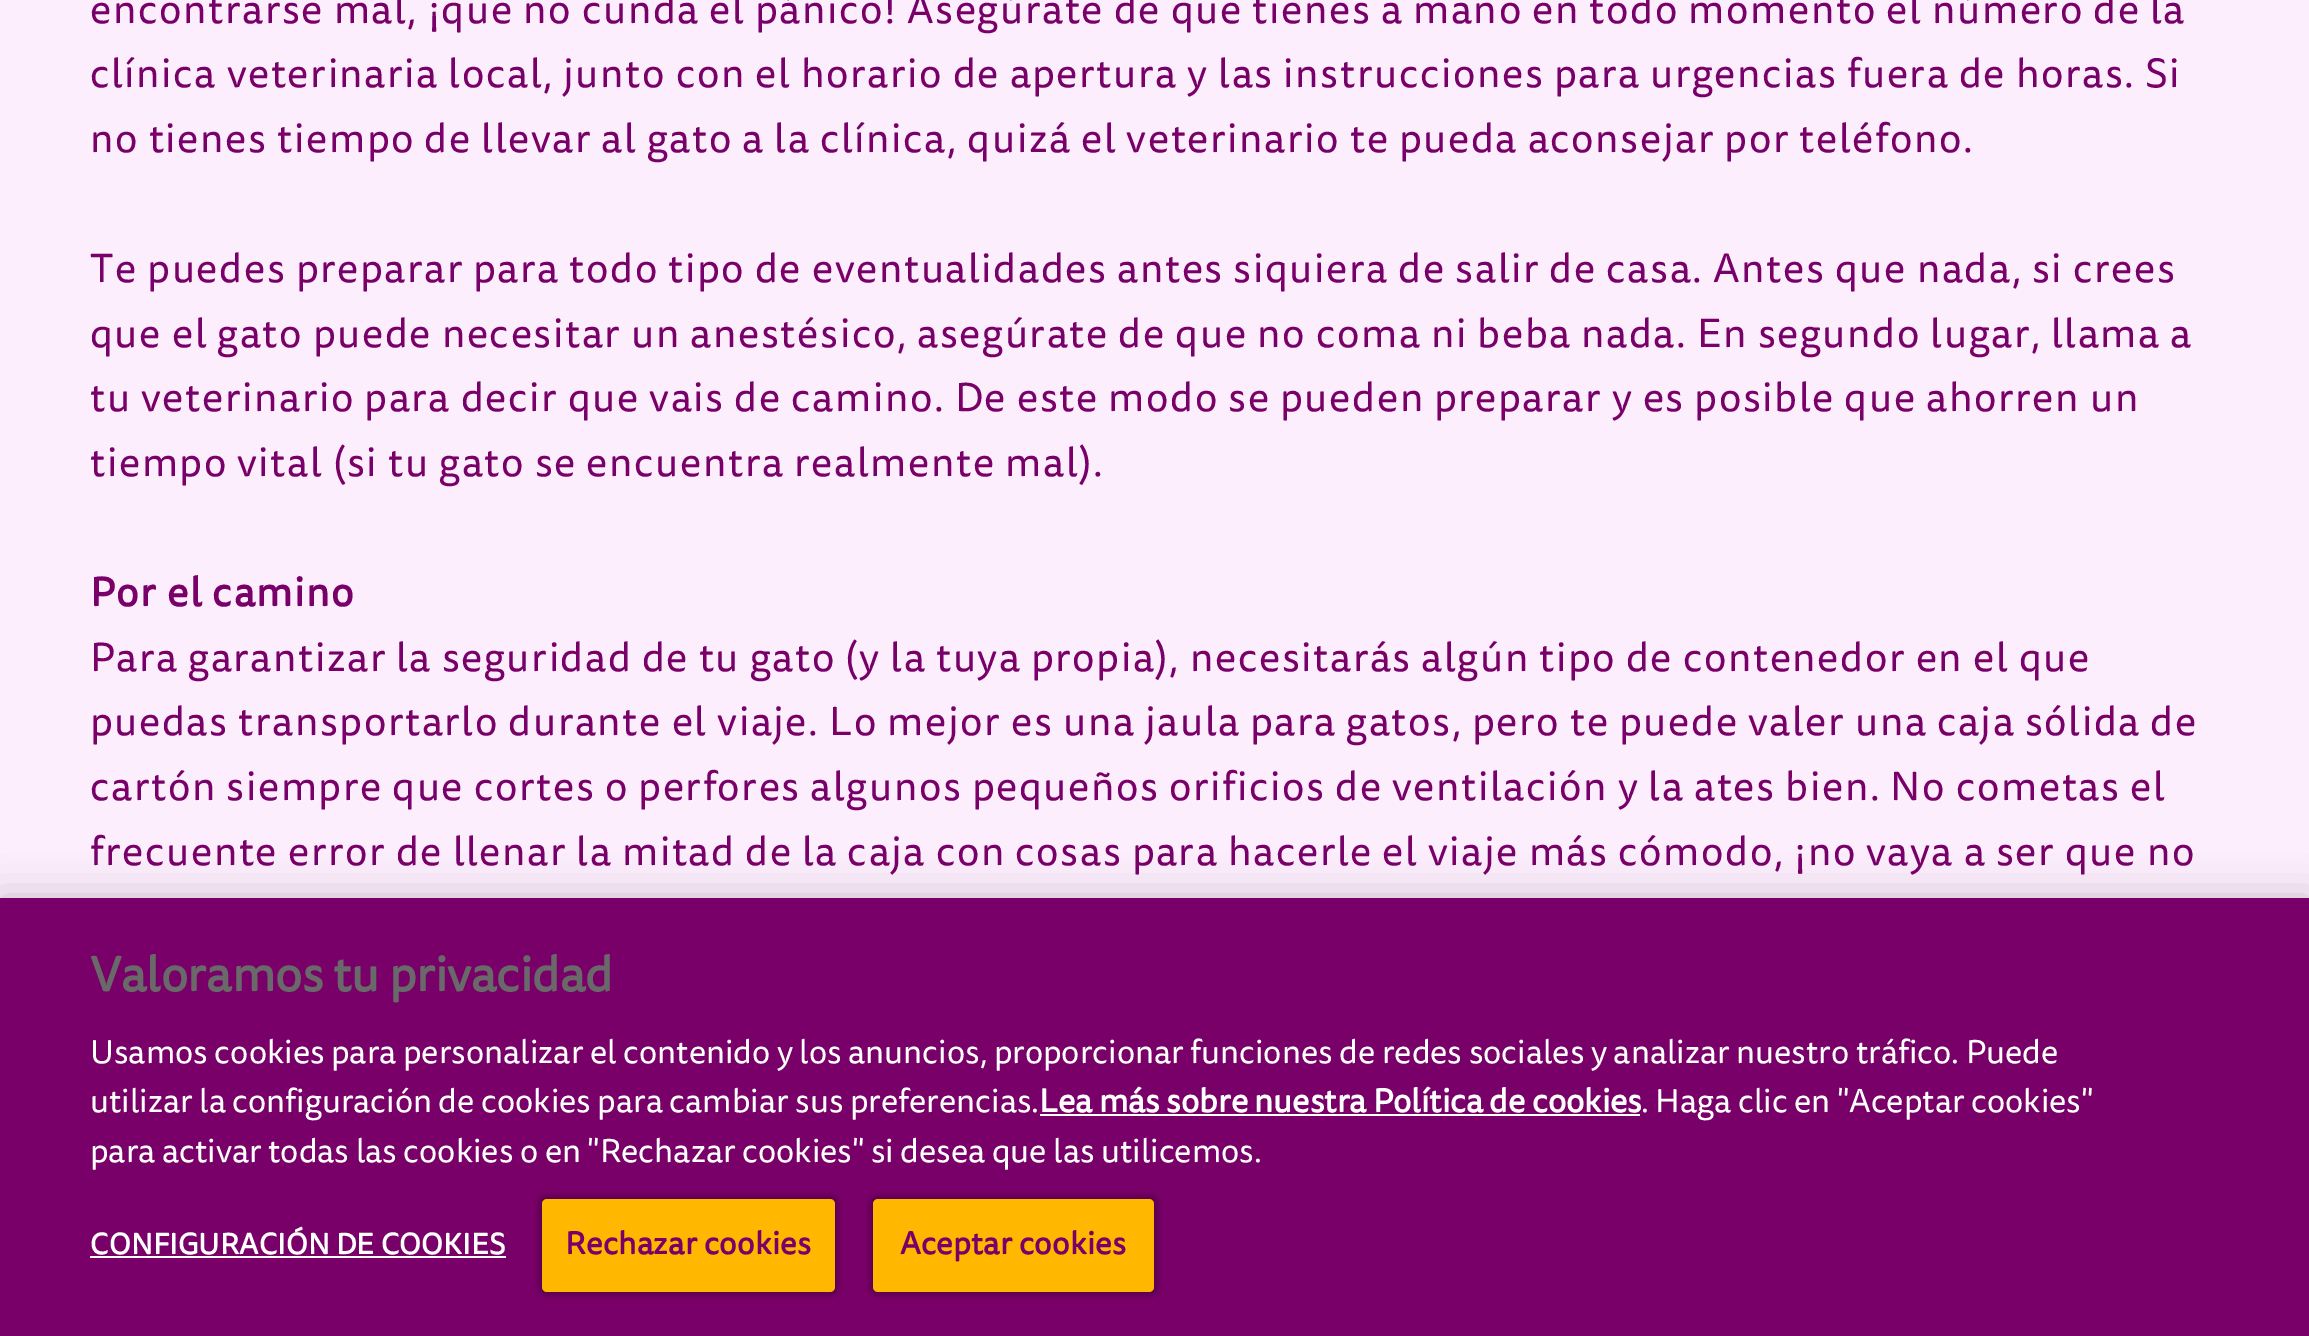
%!PS
<< /PageSize [2309 1336] /PageUsesTransparency true >> setpagedevice
/mt/moveto load def
/fl/fill load def
/co { dup -16 bitshift 255 div exch dup -8 bitshift 255 and 255 div exch 255 and 255 div setrgbcolor } def
/fn { [ exch dup neg 0 0 3 -1 roll 0 0 ] selectfont } def
/tx { co fn moveto show } def
/bx { co rectfill } def
/al { dup .setfillconstantalpha .setstrokeconstantalpha } def
/rr { 5 dict begin { /r /h /w /y /x } { exch def } forall
  x r add y moveto x w add y 2 copy h add r arct x w add y h add x 1 index r arct
  x y h add x y r arct x y 2 copy exch w add exch r arct closepath end } def
/sh { 12 dict begin { /a /b /q /h /w /y /x } { exch def } forall gsave /was 0 def
  9 -2 -9 { dup b mul 4 div /e exch def 1 sub .425 mul 2.718 exch exp 1 add a .99 .min exch div /now exch def
    1 1 now sub 1 was sub div sub al /was now def
    w h .min e 2 mul add 0 gt { x e sub y e sub w e 2 mul add h e 2 mul add
      q e add b .6 mul add w h .min 2 div e add .min 0 .max rr fill } if } for grestore end } def
0 .pushpdf14devicefilter
0 1336 translate 1 -1 scale
4 setmiterlimit
0 0 2309 1336 16#FDEEFD bx
16#000000 co
0 898 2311 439 0 20 .2 sh
0 898 2309 438 16#780068 bx
1040 1114 600 2 16#FFFFFF bx
90 1256 416 2 16#FFFFFF bx
16#000000 co
538 1195 301 101 9 2 .2 sh
16#FFB700 co
542 1199 293 93 5 rr fl
16#000000 co
869 1195 290 101 9 2 .2 sh
16#FFB700 co
873 1199 281 93 5 rr fl
/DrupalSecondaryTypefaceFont-Regular 40.5 fn
16#780068 co
90 23 mt 1.57 0 (encontrarse mal, ¡que no cunda el pánico! Asegúrate de que tienes a mano en todo momento el número de la) ashow
90 87 mt 1.57 0 (clínica veterinaria local, junto con el horario de apertura y las instrucciones para urgencias fuera de horas. Si) ashow
90 152 mt 1.57 0 (no tienes tiempo de llevar al gato a la clínica, quizá el veterinario te pueda aconsejar por teléfono.) ashow
90 282 mt 1.57 0 (Te puedes preparar para todo tipo de eventualidades antes siquiera de salir de casa. Antes que nada, si crees) ashow
90 347 mt 1.57 0 (que el gato puede necesitar un anestésico, asegúrate de que no coma ni beba nada. En segundo lugar, llama a) ashow
90 411 mt 1.57 0 (tu veterinario para decir que vais de camino. De este modo se pueden preparar y es posible que ahorren un) ashow
90 476 mt 1.57 0 (tiempo vital \(si tu gato se encuentra realmente mal\).) ashow
/DrupalSecondaryTypefaceFont-Bold 40.5 fn
90 606 mt 1.57 0 (Por el camino) ashow
/DrupalSecondaryTypefaceFont-Regular 40.5 fn
90 671 mt 1.57 0 (Para garantizar la seguridad de tu gato \(y la tuya propia\), necesitarás algún tipo de contenedor en el que) ashow
90 735 mt 1.57 0 (puedas transportarlo durante el viaje. Lo mejor es una jaula para gatos, pero te puede valer una caja sólida de) ashow
90 800 mt 1.57 0 (cartón siempre que cortes o perfores algunos pequeños orificios de ventilación y la ates bien. No cometas el) ashow
90 865 mt 1.57 0 (frecuente error de llenar la mitad de la caja con cosas para hacerle el viaje más cómodo, ¡no vaya a ser que no) ashow
(Valoramos tu privacidad) 90 991 /DrupalSecondaryTypefaceFont-Bold 48.6 16#696969 tx
(Usamos cookies para personalizar el contenido y los anuncios, proporcionar funciones de redes sociales y analizar nuestro tráfico. Puede) 90 1063 /DrupalSecondaryTypefaceFont-Regular 32.93 16#FFFFFF tx
(utilizar la configuración de cookies para cambiar sus preferencias.) 90 1112 /DrupalSecondaryTypefaceFont-Regular 32.93 16#FFFFFF tx
(Lea más sobre nuestra Política de cookies) 1039 1112 /DrupalSecondaryTypefaceFont-Bold 32.93 16#FFFFFF tx
(. Haga clic en "Aceptar cookies") 1641 1112 /DrupalSecondaryTypefaceFont-Regular 32.93 16#FFFFFF tx
(para activar todas las cookies o en "Rechazar cookies" si desea que las utilicemos.) 90 1162 /DrupalSecondaryTypefaceFont-Regular 32.93 16#FFFFFF tx
/DrupalSecondaryTypefaceFont-Bold 29.25 fn
90 1254 mt .25 0 (CONFIGURACIÓN DE COOKIES) ashow
/DrupalSecondaryTypefaceFont-Bold 31.5 fn
16#780068 co
565 1254 mt .3 0 (Rechazar cookies) ashow
900 1254 mt .3 0 (Aceptar cookies) ashow
.poppdf14devicefilter showpage
